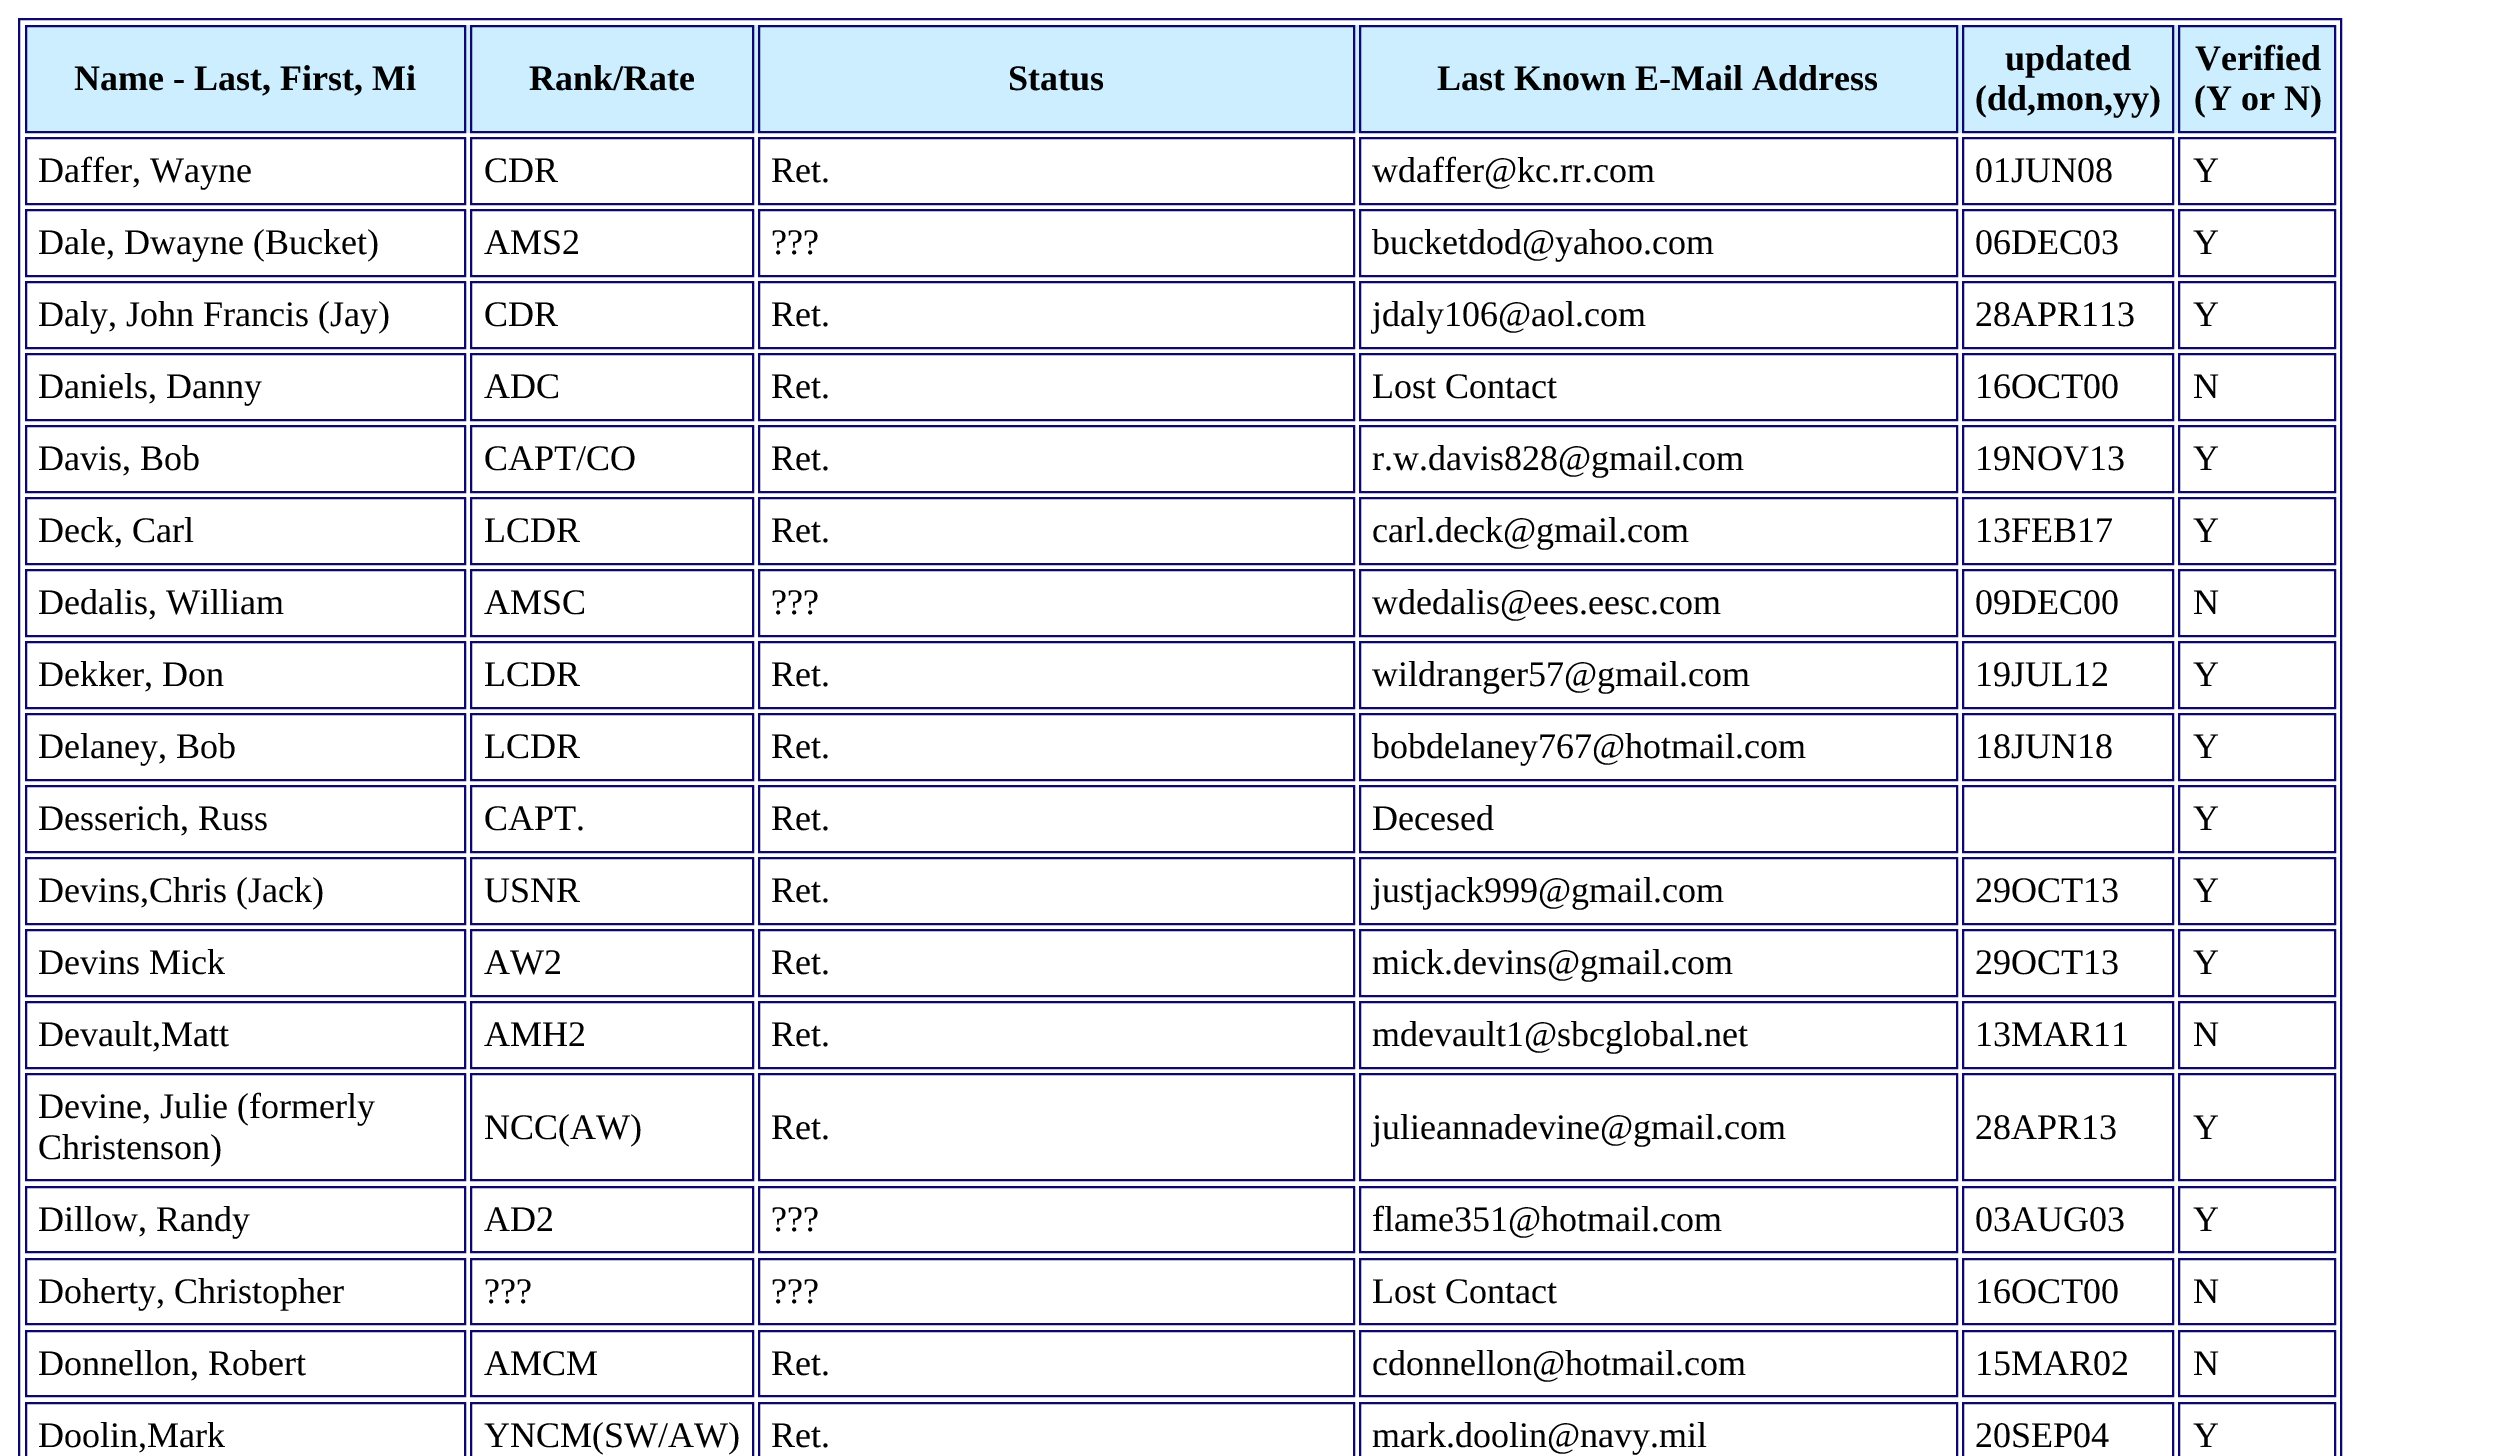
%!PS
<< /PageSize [2512 1456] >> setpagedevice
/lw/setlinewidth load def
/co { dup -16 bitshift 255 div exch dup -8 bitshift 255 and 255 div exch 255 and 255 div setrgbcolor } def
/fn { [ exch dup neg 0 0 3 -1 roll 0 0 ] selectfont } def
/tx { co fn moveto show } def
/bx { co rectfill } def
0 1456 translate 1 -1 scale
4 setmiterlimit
0 0 2512 1456 16#FFFFFF bx
16#0D096C co
2 lw
19 19 2322 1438 rectstroke
27 25 2307 108 16#CCEEFF bx
16#0D096C co
26 26 439 106 rectstroke
471 26 282 106 rectstroke
759 26 595 106 rectstroke
1360 26 597 106 rectstroke
1963 26 210 106 rectstroke
2179 26 156 106 rectstroke
26 138 439 66 rectstroke
471 138 282 66 rectstroke
759 138 595 66 rectstroke
1360 138 597 66 rectstroke
1963 138 210 66 rectstroke
2179 138 156 66 rectstroke
26 210 439 66 rectstroke
471 210 282 66 rectstroke
759 210 595 66 rectstroke
1360 210 597 66 rectstroke
1963 210 210 66 rectstroke
2179 210 156 66 rectstroke
26 282 439 66 rectstroke
471 282 282 66 rectstroke
759 282 595 66 rectstroke
1360 282 597 66 rectstroke
1963 282 210 66 rectstroke
2179 282 156 66 rectstroke
26 354 439 66 rectstroke
471 354 282 66 rectstroke
759 354 595 66 rectstroke
1360 354 597 66 rectstroke
1963 354 210 66 rectstroke
2179 354 156 66 rectstroke
26 426 439 66 rectstroke
471 426 282 66 rectstroke
759 426 595 66 rectstroke
1360 426 597 66 rectstroke
1963 426 210 66 rectstroke
2179 426 156 66 rectstroke
26 498 439 66 rectstroke
471 498 282 66 rectstroke
759 498 595 66 rectstroke
1360 498 597 66 rectstroke
1963 498 210 66 rectstroke
2179 498 156 66 rectstroke
26 570 439 66 rectstroke
471 570 282 66 rectstroke
759 570 595 66 rectstroke
1360 570 597 66 rectstroke
1963 570 210 66 rectstroke
2179 570 156 66 rectstroke
26 642 439 66 rectstroke
471 642 282 66 rectstroke
759 642 595 66 rectstroke
1360 642 597 66 rectstroke
1963 642 210 66 rectstroke
2179 642 156 66 rectstroke
26 714 439 66 rectstroke
471 714 282 66 rectstroke
759 714 595 66 rectstroke
1360 714 597 66 rectstroke
1963 714 210 66 rectstroke
2179 714 156 66 rectstroke
26 786 439 66 rectstroke
471 786 282 66 rectstroke
759 786 595 66 rectstroke
1360 786 597 66 rectstroke
1963 786 210 66 rectstroke
2179 786 156 66 rectstroke
26 858 439 66 rectstroke
471 858 282 66 rectstroke
759 858 595 66 rectstroke
1360 858 597 66 rectstroke
1963 858 210 66 rectstroke
2179 858 156 66 rectstroke
26 930 439 66 rectstroke
471 930 282 66 rectstroke
759 930 595 66 rectstroke
1360 930 597 66 rectstroke
1963 930 210 66 rectstroke
2179 930 156 66 rectstroke
26 1002 439 66 rectstroke
471 1002 282 66 rectstroke
759 1002 595 66 rectstroke
1360 1002 597 66 rectstroke
1963 1002 210 66 rectstroke
2179 1002 156 66 rectstroke
26 1074 439 106 rectstroke
471 1074 282 106 rectstroke
759 1074 595 106 rectstroke
1360 1074 597 106 rectstroke
1963 1074 210 106 rectstroke
2179 1074 156 106 rectstroke
26 1187 439 65 rectstroke
471 1187 282 65 rectstroke
759 1187 595 65 rectstroke
1360 1187 597 65 rectstroke
1963 1187 210 65 rectstroke
2179 1187 156 65 rectstroke
26 1259 439 65 rectstroke
471 1259 282 65 rectstroke
759 1259 595 65 rectstroke
1360 1259 597 65 rectstroke
1963 1259 210 65 rectstroke
2179 1259 156 65 rectstroke
26 1331 439 65 rectstroke
471 1331 282 65 rectstroke
759 1331 595 65 rectstroke
1360 1331 597 65 rectstroke
1963 1331 210 65 rectstroke
2179 1331 156 65 rectstroke
26 1403 439 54 rectstroke
471 1403 282 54 rectstroke
759 1403 595 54 rectstroke
1360 1403 597 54 rectstroke
1963 1403 210 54 rectstroke
2179 1403 156 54 rectstroke
(Name - Last, First, Mi) 74 90 /LiberationSerif-Bold 36 16#000000 tx
(Rank/Rate) 529 90 /LiberationSerif-Bold 36 16#000000 tx
(Status) 1008 90 /LiberationSerif-Bold 36 16#000000 tx
(Last Known E-Mail Address) 1437 90 /LiberationSerif-Bold 36 16#000000 tx
(updated) 2005 70 /LiberationSerif-Bold 36 16#000000 tx
(\(dd,mon,yy\)) 1975 110 /LiberationSerif-Bold 36 16#000000 tx
(Verified) 2195 70 /LiberationSerif-Bold 36 16#000000 tx
(\(Y or N\)) 2194 110 /LiberationSerif-Bold 36 16#000000 tx
(Daffer, Wayne) 38 182 /LiberationSerif-Regular 36 16#000000 tx
(CDR) 484 182 /LiberationSerif-Regular 36 16#000000 tx
(Ret.) 771 182 /LiberationSerif-Regular 36 16#000000 tx
(wdaffer@kc.rr.com) 1372 182 /LiberationSerif-Regular 36 16#000000 tx
(01JUN08) 1975 182 /LiberationSerif-Regular 36 16#000000 tx
(Y) 2193 182 /LiberationSerif-Regular 36 16#000000 tx
(Dale, Dwayne \(Bucket\)) 38 254 /LiberationSerif-Regular 36 16#000000 tx
(AMS2) 484 254 /LiberationSerif-Regular 36 16#000000 tx
(???) 771 254 /LiberationSerif-Regular 36 16#000000 tx
(bucketdod@yahoo.com) 1372 254 /LiberationSerif-Regular 36 16#000000 tx
(06DEC03) 1975 254 /LiberationSerif-Regular 36 16#000000 tx
(Y) 2193 254 /LiberationSerif-Regular 36 16#000000 tx
(Daly, John Francis \(Jay\)) 38 326 /LiberationSerif-Regular 36 16#000000 tx
(CDR) 484 326 /LiberationSerif-Regular 36 16#000000 tx
(Ret.) 771 326 /LiberationSerif-Regular 36 16#000000 tx
(jdaly106@aol.com) 1372 326 /LiberationSerif-Regular 36 16#000000 tx
(28APR113) 1975 326 /LiberationSerif-Regular 36 16#000000 tx
(Y) 2193 326 /LiberationSerif-Regular 36 16#000000 tx
(Daniels, Danny) 38 398 /LiberationSerif-Regular 36 16#000000 tx
(ADC) 484 398 /LiberationSerif-Regular 36 16#000000 tx
(Ret.) 771 398 /LiberationSerif-Regular 36 16#000000 tx
(Lost Contact) 1372 398 /LiberationSerif-Regular 36 16#000000 tx
(16OCT00) 1975 398 /LiberationSerif-Regular 36 16#000000 tx
(N) 2193 398 /LiberationSerif-Regular 36 16#000000 tx
(Davis, Bob) 38 470 /LiberationSerif-Regular 36 16#000000 tx
(CAPT/CO) 484 470 /LiberationSerif-Regular 36 16#000000 tx
(Ret.) 771 470 /LiberationSerif-Regular 36 16#000000 tx
(r.w.davis828@gmail.com) 1372 470 /LiberationSerif-Regular 36 16#000000 tx
(19NOV13) 1975 470 /LiberationSerif-Regular 36 16#000000 tx
(Y) 2193 470 /LiberationSerif-Regular 36 16#000000 tx
(Deck, Carl) 38 542 /LiberationSerif-Regular 36 16#000000 tx
(LCDR) 484 542 /LiberationSerif-Regular 36 16#000000 tx
(Ret.) 771 542 /LiberationSerif-Regular 36 16#000000 tx
(carl.deck@gmail.com) 1372 542 /LiberationSerif-Regular 36 16#000000 tx
(13FEB17) 1975 542 /LiberationSerif-Regular 36 16#000000 tx
(Y) 2193 542 /LiberationSerif-Regular 36 16#000000 tx
(Dedalis, William) 38 614 /LiberationSerif-Regular 36 16#000000 tx
(AMSC) 484 614 /LiberationSerif-Regular 36 16#000000 tx
(???) 771 614 /LiberationSerif-Regular 36 16#000000 tx
(wdedalis@ees.eesc.com) 1372 614 /LiberationSerif-Regular 36 16#000000 tx
(09DEC00) 1975 614 /LiberationSerif-Regular 36 16#000000 tx
(N) 2193 614 /LiberationSerif-Regular 36 16#000000 tx
(Dekker, Don) 38 686 /LiberationSerif-Regular 36 16#000000 tx
(LCDR) 484 686 /LiberationSerif-Regular 36 16#000000 tx
(Ret.) 771 686 /LiberationSerif-Regular 36 16#000000 tx
(wildranger57@gmail.com) 1372 686 /LiberationSerif-Regular 36 16#000000 tx
(19JUL12) 1975 686 /LiberationSerif-Regular 36 16#000000 tx
(Y) 2193 686 /LiberationSerif-Regular 36 16#000000 tx
(Delaney, Bob) 38 758 /LiberationSerif-Regular 36 16#000000 tx
(LCDR) 484 758 /LiberationSerif-Regular 36 16#000000 tx
(Ret.) 771 758 /LiberationSerif-Regular 36 16#000000 tx
(bobdelaney767@hotmail.com) 1372 758 /LiberationSerif-Regular 36 16#000000 tx
(18JUN18) 1975 758 /LiberationSerif-Regular 36 16#000000 tx
(Y) 2193 758 /LiberationSerif-Regular 36 16#000000 tx
(Desserich, Russ) 38 830 /LiberationSerif-Regular 36 16#000000 tx
(CAPT.) 484 830 /LiberationSerif-Regular 36 16#000000 tx
(Ret.) 771 830 /LiberationSerif-Regular 36 16#000000 tx
(Decesed) 1372 830 /LiberationSerif-Regular 36 16#000000 tx
(Y) 2193 830 /LiberationSerif-Regular 36 16#000000 tx
(Devins,Chris \(Jack\)) 38 902 /LiberationSerif-Regular 36 16#000000 tx
(USNR) 484 902 /LiberationSerif-Regular 36 16#000000 tx
(Ret.) 771 902 /LiberationSerif-Regular 36 16#000000 tx
(justjack999@gmail.com) 1372 902 /LiberationSerif-Regular 36 16#000000 tx
(29OCT13) 1975 902 /LiberationSerif-Regular 36 16#000000 tx
(Y) 2193 902 /LiberationSerif-Regular 36 16#000000 tx
(Devins Mick) 38 974 /LiberationSerif-Regular 36 16#000000 tx
(AW2) 484 974 /LiberationSerif-Regular 36 16#000000 tx
(Ret.) 771 974 /LiberationSerif-Regular 36 16#000000 tx
(mick.devins@gmail.com) 1372 974 /LiberationSerif-Regular 36 16#000000 tx
(29OCT13) 1975 974 /LiberationSerif-Regular 36 16#000000 tx
(Y) 2193 974 /LiberationSerif-Regular 36 16#000000 tx
(Devault,Matt) 38 1046 /LiberationSerif-Regular 36 16#000000 tx
(AMH2) 484 1046 /LiberationSerif-Regular 36 16#000000 tx
(Ret.) 771 1046 /LiberationSerif-Regular 36 16#000000 tx
(mdevault1@sbcglobal.net) 1372 1046 /LiberationSerif-Regular 36 16#000000 tx
(13MAR11) 1975 1046 /LiberationSerif-Regular 36 16#000000 tx
(N) 2193 1046 /LiberationSerif-Regular 36 16#000000 tx
(Devine, Julie \(formerly) 38 1118 /LiberationSerif-Regular 36 16#000000 tx
(Christenson\)) 38 1159 /LiberationSerif-Regular 36 16#000000 tx
(NCC\(AW\)) 484 1139 /LiberationSerif-Regular 36 16#000000 tx
(Ret.) 771 1139 /LiberationSerif-Regular 36 16#000000 tx
(julieannadevine@gmail.com) 1372 1139 /LiberationSerif-Regular 36 16#000000 tx
(28APR13) 1975 1139 /LiberationSerif-Regular 36 16#000000 tx
(Y) 2193 1139 /LiberationSerif-Regular 36 16#000000 tx
(Dillow, Randy) 38 1231 /LiberationSerif-Regular 36 16#000000 tx
(AD2) 484 1231 /LiberationSerif-Regular 36 16#000000 tx
(???) 771 1231 /LiberationSerif-Regular 36 16#000000 tx
(flame351@hotmail.com) 1372 1231 /LiberationSerif-Regular 36 16#000000 tx
(03AUG03) 1975 1231 /LiberationSerif-Regular 36 16#000000 tx
(Y) 2193 1231 /LiberationSerif-Regular 36 16#000000 tx
(Doherty, Christopher) 38 1303 /LiberationSerif-Regular 36 16#000000 tx
(???) 484 1303 /LiberationSerif-Regular 36 16#000000 tx
(???) 771 1303 /LiberationSerif-Regular 36 16#000000 tx
(Lost Contact) 1372 1303 /LiberationSerif-Regular 36 16#000000 tx
(16OCT00) 1975 1303 /LiberationSerif-Regular 36 16#000000 tx
(N) 2193 1303 /LiberationSerif-Regular 36 16#000000 tx
(Donnellon, Robert) 38 1375 /LiberationSerif-Regular 36 16#000000 tx
(AMCM) 484 1375 /LiberationSerif-Regular 36 16#000000 tx
(Ret.) 771 1375 /LiberationSerif-Regular 36 16#000000 tx
(cdonnellon@hotmail.com) 1372 1375 /LiberationSerif-Regular 36 16#000000 tx
(15MAR02) 1975 1375 /LiberationSerif-Regular 36 16#000000 tx
(N) 2193 1375 /LiberationSerif-Regular 36 16#000000 tx
(Doolin,Mark) 38 1447 /LiberationSerif-Regular 36 16#000000 tx
(YNCM\(SW/AW\)) 484 1447 /LiberationSerif-Regular 36 16#000000 tx
(Ret.) 771 1447 /LiberationSerif-Regular 36 16#000000 tx
(mark.doolin@navy.mil) 1372 1447 /LiberationSerif-Regular 36 16#000000 tx
(20SEP04) 1975 1447 /LiberationSerif-Regular 36 16#000000 tx
(Y) 2193 1447 /LiberationSerif-Regular 36 16#000000 tx
showpage
